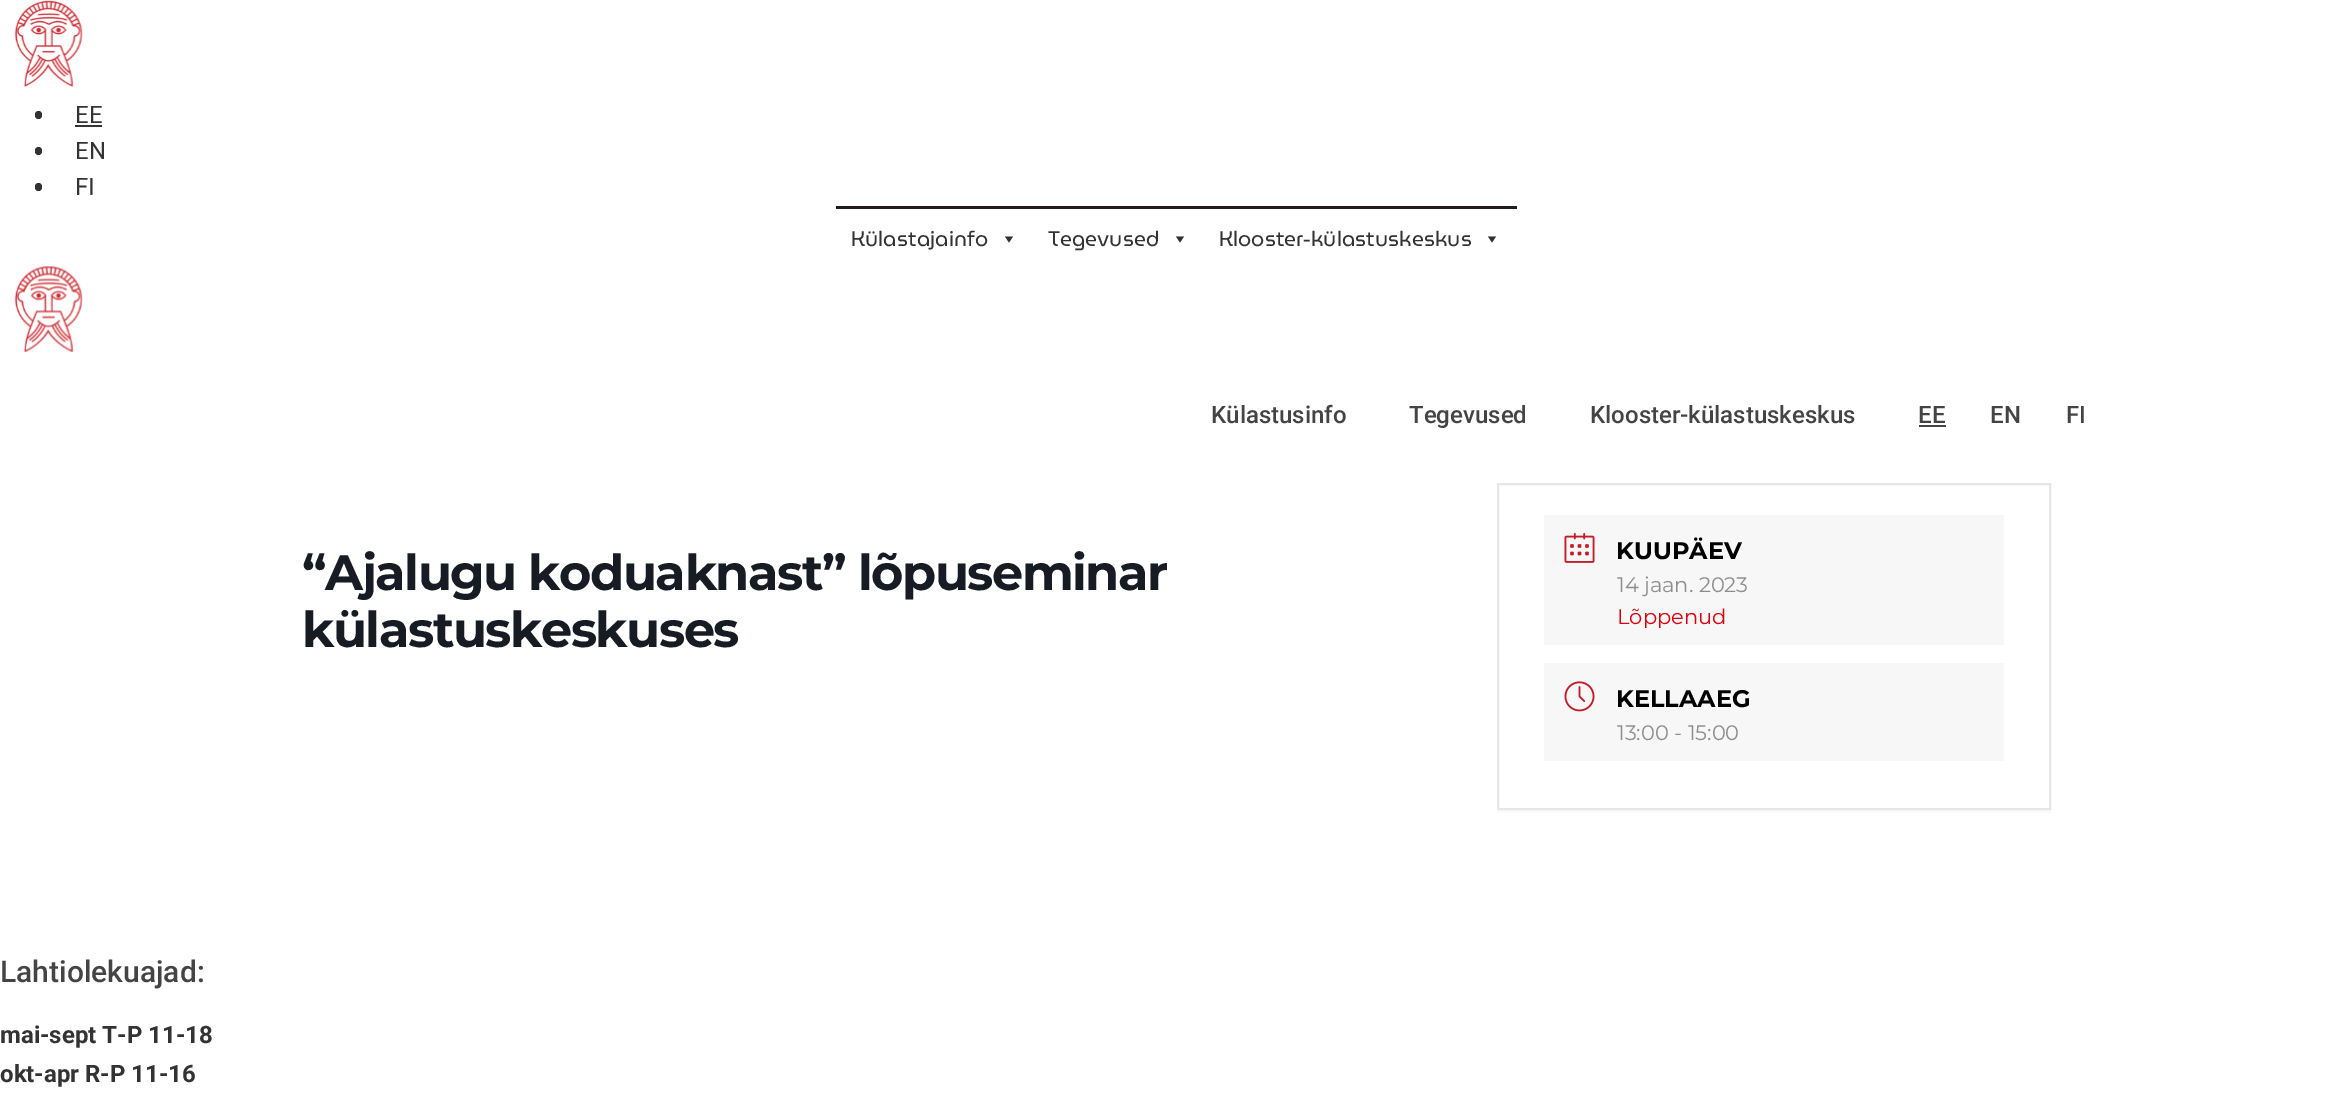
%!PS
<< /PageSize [2351 1114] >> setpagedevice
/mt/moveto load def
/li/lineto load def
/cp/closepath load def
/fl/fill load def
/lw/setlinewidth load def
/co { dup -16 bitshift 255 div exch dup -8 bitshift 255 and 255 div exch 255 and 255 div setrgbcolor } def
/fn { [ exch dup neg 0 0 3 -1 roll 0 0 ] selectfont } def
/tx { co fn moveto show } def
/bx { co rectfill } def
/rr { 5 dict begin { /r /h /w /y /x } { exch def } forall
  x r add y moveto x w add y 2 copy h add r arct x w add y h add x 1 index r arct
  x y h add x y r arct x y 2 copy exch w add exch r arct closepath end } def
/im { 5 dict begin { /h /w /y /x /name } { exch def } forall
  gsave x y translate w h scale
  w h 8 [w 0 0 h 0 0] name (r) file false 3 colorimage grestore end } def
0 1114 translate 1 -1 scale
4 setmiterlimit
0 0 2351 1114 16#FFFFFF bx
(media/1.raw) 14 0 69 87 im
16#333333 co
35 111 7 8 3.5 rr fl
75 125 27 2 16#333333 bx
35 147 7 8 3.5 rr fl
35 183 7 8 3.5 rr fl
836 206 681 3 16#251B1C bx
16#333333 co
1013 236.5 mt 1009 242.5 li 1005 236.5 li cp fl
1184 236.5 mt 1180 242.5 li 1176 236.5 li cp fl
1496 236.5 mt 1492 242.5 li 1488 236.5 li cp fl
(media/2.raw) 14 266 69 87 im
1919 425 27 2 16#444444 bx
16#FBFBFB co
1497 810 mt 1497 813 li 2051 813 li 2051 486 li 2050 486 li 2050 810 li cp fl
16#E6E6E6 co
2 lw
1498 484 552 325 rectstroke
1544 515 460 130 16#F7F7F7 bx
(media/3.raw) 1564 532 31 31 im
1544 663 460 98 16#F7F7F7 bx
(media/4.raw) 1564 681 31 31 im
(EE) 75 123 /Roboto-Regular 24 16#333333 tx
(EN) 75 159 /Roboto-Regular 24 16#333333 tx
(FI) 75 195 /Roboto-Regular 24 16#333333 tx
(Külastajainfo) 851 246 /MuseoModerno-Regular 21 16#333333 tx
(Tegevused) 1048 246 /MuseoModerno-Regular 21 16#333333 tx
(Klooster-külastuskeskus) 1219 246 /MuseoModerno-Regular 21 16#333333 tx
(Külastusinfo) 1211 423 /Roboto-Medium 24 16#444444 tx
(Tegevused) 1409 423 /Roboto-Medium 24 16#444444 tx
(Klooster-külastuskeskus) 1590 423 /Roboto-Medium 24 16#444444 tx
(EE) 1918 423 /Roboto-Medium 24 16#444444 tx
(EN) 1990 423 /Roboto-Medium 24 16#444444 tx
(FI) 2066 423 /Roboto-Medium 24 16#444444 tx
/Montserrat-Bold 49.5 fn
16#171C24 co
302 590 mt -1.5 0 (“Ajalugu koduaknast” lõpuseminar) ashow
302 647 mt -1.5 0 (külastuskeskuses) ashow
(KUUPÄEV) 1616 559 /Montserrat-Bold 24 16#000000 tx
(14 jaan. 2023) 1617 592 /Montserrat-Regular 21 16#8D8D8D tx
(Lõppenud) 1617 624 /Montserrat-Regular 21 16#D8000C tx
(KELLAAEG) 1616 707 /Montserrat-Bold 24 16#000000 tx
(13:00 - 15:00) 1617 740 /Montserrat-Regular 21 16#8D8D8D tx
(Lahtiolekuajad:) 0 982 /Roboto-Medium 30 16#444444 tx
(mai-sept T-P 11-18) 0 1043 /Roboto-Bold 24 16#333333 tx
(okt-apr R-P 11-16) 0 1082 /Roboto-Bold 24 16#333333 tx
showpage
